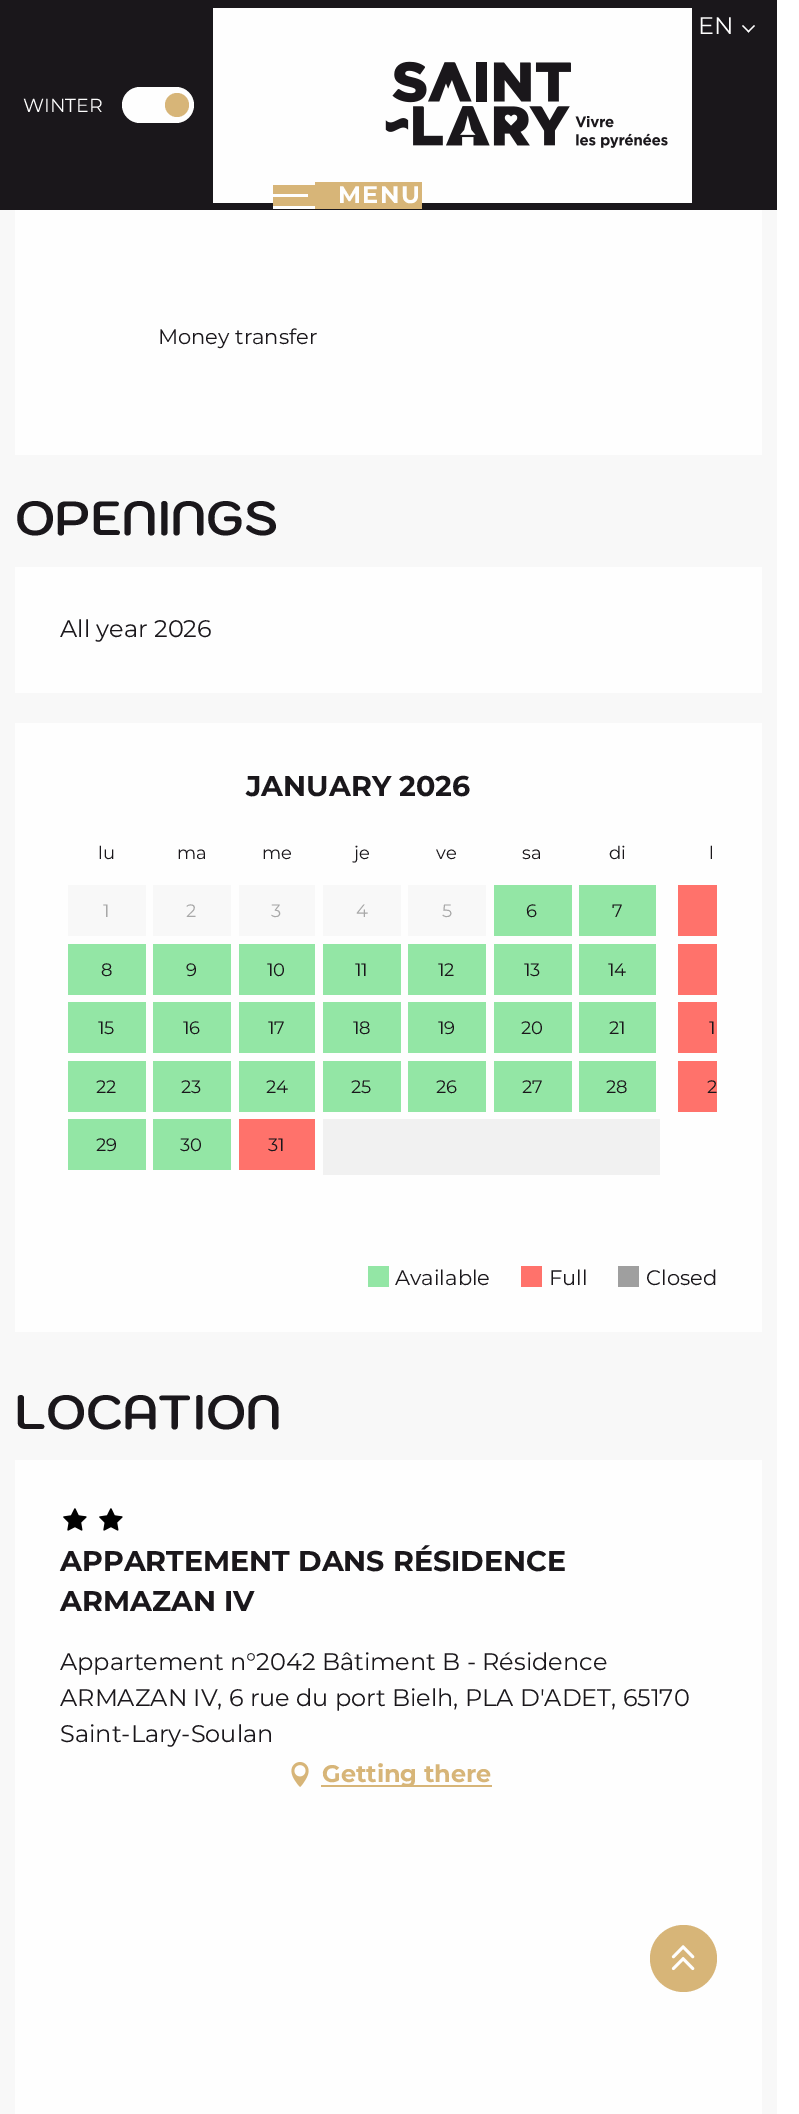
%!PS
<< /PageSize [799 2114] >> setpagedevice
/mt/moveto load def
/li/lineto load def
/cp/closepath load def
/fl/fill load def
/co { dup -16 bitshift 255 div exch dup -8 bitshift 255 and 255 div exch 255 and 255 div setrgbcolor } def
/fn { [ exch dup neg 0 0 3 -1 roll 0 0 ] selectfont } def
/tx { co fn moveto show } def
/bx { co rectfill } def
/ci { newpath 0 360 arc closepath } def
/rr { 5 dict begin { /r /h /w /y /x } { exch def } forall
  x r add y moveto x w add y 2 copy h add r arct x w add y h add x 1 index r arct
  x y h add x y r arct x y 2 copy exch w add exch r arct closepath end } def
/im { 5 dict begin { /h /w /y /x /name } { exch def } forall
  gsave x y translate w h scale
  w h 8 [w 0 0 h 0 0] name (r) file false 3 colorimage grestore end } def
0 2114 translate 1 -1 scale
4 setmiterlimit
0 0 799 2114 16#FFFFFF bx
0 0 777 210 16#1A171B bx
16#FEFEFE co
755 26 mt 748.5 32.5 li 747.5 31.5 li 754 25 li cp fl
749.5 31.5 mt 748.5 32.5 li 742 26 li 743 25 li cp fl
122 87 72 36 18 rr fl
16#D7B578 co
177 105 12 ci fl
213 8 479 195 16#FEFEFE bx
(media/1.raw) 385 61 283 87 im
273 182 149 27 16#D7B578 bx
273 182 42 3 16#FEFEFE bx
273 194 35 3 16#FEFEFE bx
273 206 42 3 16#FEFEFE bx
0 210 777 1904 16#F8F8F8 bx
15 210 747 245 16#FEFEFE bx
15 567 747 126 16#FEFEFE bx
15 723 747 609 16#FEFEFE bx
68 885 78 51 16#F8F8F8 bx
153 885 78 51 16#F8F8F8 bx
239 885 76 51 16#F8F8F8 bx
323 885 78 51 16#F8F8F8 bx
408 885 78 51 16#F8F8F8 bx
494 885 78 51 16#93E6A5 bx
579 885 77 51 16#93E6A5 bx
68 944 78 51 16#93E6A5 bx
153 944 78 51 16#93E6A5 bx
239 944 76 51 16#93E6A5 bx
323 944 78 51 16#93E6A5 bx
408 944 78 51 16#93E6A5 bx
494 944 78 51 16#93E6A5 bx
579 944 77 51 16#93E6A5 bx
68 1002 78 51 16#93E6A5 bx
153 1002 78 51 16#93E6A5 bx
239 1002 76 51 16#93E6A5 bx
323 1002 78 51 16#93E6A5 bx
408 1002 78 51 16#93E6A5 bx
494 1002 78 51 16#93E6A5 bx
579 1002 77 51 16#93E6A5 bx
68 1061 78 51 16#93E6A5 bx
153 1061 78 51 16#93E6A5 bx
239 1061 76 51 16#93E6A5 bx
323 1061 78 51 16#93E6A5 bx
408 1061 78 51 16#93E6A5 bx
494 1061 78 51 16#93E6A5 bx
579 1061 77 51 16#93E6A5 bx
323 1119 337 56 16#F1F1F1 bx
68 1119 78 51 16#93E6A5 bx
153 1119 78 51 16#93E6A5 bx
239 1119 76 51 16#FF726B bx
678 885 39 51 16#FF726B bx
678 944 39 51 16#FF726B bx
678 1002 39 51 16#FF726B bx
678 1061 39 51 16#FF726B bx
368 1266 21 21 16#93E6A5 bx
521 1266 21 21 16#FF726B bx
618 1266 21 21 16#9F9F9F bx
15 1460 747 654 16#FEFEFE bx
(media/2.raw) 63 1508 24 23 im
(media/2.raw) 99 1508 24 23 im
(media/3.raw) 291 1762 18 25 im
321 1785 171 2 16#D7B578 bx
683.5 1958.5 33.5 ci fl
(media/4.raw) 671 1945 24 26 im
(EN) 698 34 /Montserrat-Regular 24 16#FEFEFE tx
(WINTER) 23 112 /Montserrat-Regular 19 16#FEFEFE tx
/Montserrat-Bold 24 fn
338 203 mt 1.5 0 (MENU) ashow
(Money transfer) 158 344 /Montserrat-Regular 21 16#1A171B tx
(OPENINGS) 15 535 /Kodchasan-Bold 48 16#1A171B tx
(All year 2026) 60 637 /Montserrat-Regular 24 16#1A171B tx
(JANUARY 2026) 246 796 /Montserrat-Bold 28.5 16#1A171B tx
(lu) 98 859 /Montserrat-Regular 18 16#1A171B tx
(ma) 177 859 /Montserrat-Regular 18 16#1A171B tx
(me) 262 859 /Montserrat-Regular 18 16#1A171B tx
(je) 354 859 /Montserrat-Regular 18 16#1A171B tx
(ve) 436 859 /Montserrat-Regular 18 16#1A171B tx
(sa) 522 859 /Montserrat-Regular 18 16#1A171B tx
(di) 609 859 /Montserrat-Regular 18 16#1A171B tx
(1) 103 917 /Montserrat-Regular 18 16#A8A8A8 tx
(2) 186 917 /Montserrat-Regular 18 16#A8A8A8 tx
(3) 271 917 /Montserrat-Regular 18 16#A8A8A8 tx
(4) 356 917 /Montserrat-Regular 18 16#A8A8A8 tx
(5) 442 917 /Montserrat-Regular 18 16#A8A8A8 tx
(6) 526 917 /Montserrat-Regular 18 16#1A171B tx
(7) 612 917 /Montserrat-Regular 18 16#1A171B tx
(8) 101 976 /Montserrat-Regular 18 16#1A171B tx
(9) 186 976 /Montserrat-Regular 18 16#1A171B tx
(10) 267 976 /Montserrat-Regular 18 16#1A171B tx
(11) 355 976 /Montserrat-Regular 18 16#1A171B tx
(12) 438 976 /Montserrat-Regular 18 16#1A171B tx
(13) 524 976 /Montserrat-Regular 18 16#1A171B tx
(14) 608 976 /Montserrat-Regular 18 16#1A171B tx
(15) 98 1034 /Montserrat-Regular 18 16#1A171B tx
(16) 183 1034 /Montserrat-Regular 18 16#1A171B tx
(17) 268 1034 /Montserrat-Regular 18 16#1A171B tx
(18) 353 1034 /Montserrat-Regular 18 16#1A171B tx
(19) 438 1034 /Montserrat-Regular 18 16#1A171B tx
(20) 521 1034 /Montserrat-Regular 18 16#1A171B tx
(21) 609 1034 /Montserrat-Regular 18 16#1A171B tx
(22) 96 1093 /Montserrat-Regular 18 16#1A171B tx
(23) 181 1093 /Montserrat-Regular 18 16#1A171B tx
(24) 266 1093 /Montserrat-Regular 18 16#1A171B tx
(25) 351 1093 /Montserrat-Regular 18 16#1A171B tx
(26) 436 1093 /Montserrat-Regular 18 16#1A171B tx
(27) 522 1093 /Montserrat-Regular 18 16#1A171B tx
(28) 606 1093 /Montserrat-Regular 18 16#1A171B tx
(29) 96 1151 /Montserrat-Regular 18 16#1A171B tx
(30) 180 1151 /Montserrat-Regular 18 16#1A171B tx
(31) 268 1151 /Montserrat-Regular 18 16#1A171B tx
(l) 709 859 /Montserrat-Regular 18 16#1A171B tx
(1) 709 1034 /Montserrat-Regular 18 16#1A171B tx
(2) 707 1093 /Montserrat-Regular 18 16#1A171B tx
(Available) 395 1285 /Montserrat-Regular 21 16#1A171B tx
(Full) 549 1285 /Montserrat-Regular 21 16#1A171B tx
(Closed) 646 1285 /Montserrat-Regular 21 16#1A171B tx
(LOCATION) 15 1429 /Kodchasan-Bold 48 16#1A171B tx
(APPARTEMENT DANS RÉSIDENCE) 60 1571 /Montserrat-Bold 28.5 16#1A171B tx
(ARMAZAN IV) 60 1611 /Montserrat-Bold 28.5 16#1A171B tx
(Appartement n°2042 Bâtiment B - Résidence) 60 1670 /Montserrat-Regular 24 16#1A171B tx
(ARMAZAN IV, 6 rue du port Bielh, PLA D'ADET, 65170) 60 1706 /Montserrat-Regular 24 16#1A171B tx
(Saint-Lary-Soulan) 60 1742 /Montserrat-Regular 24 16#1A171B tx
(Getting there) 322 1782 /Montserrat-Bold 24 16#D7B578 tx
showpage
